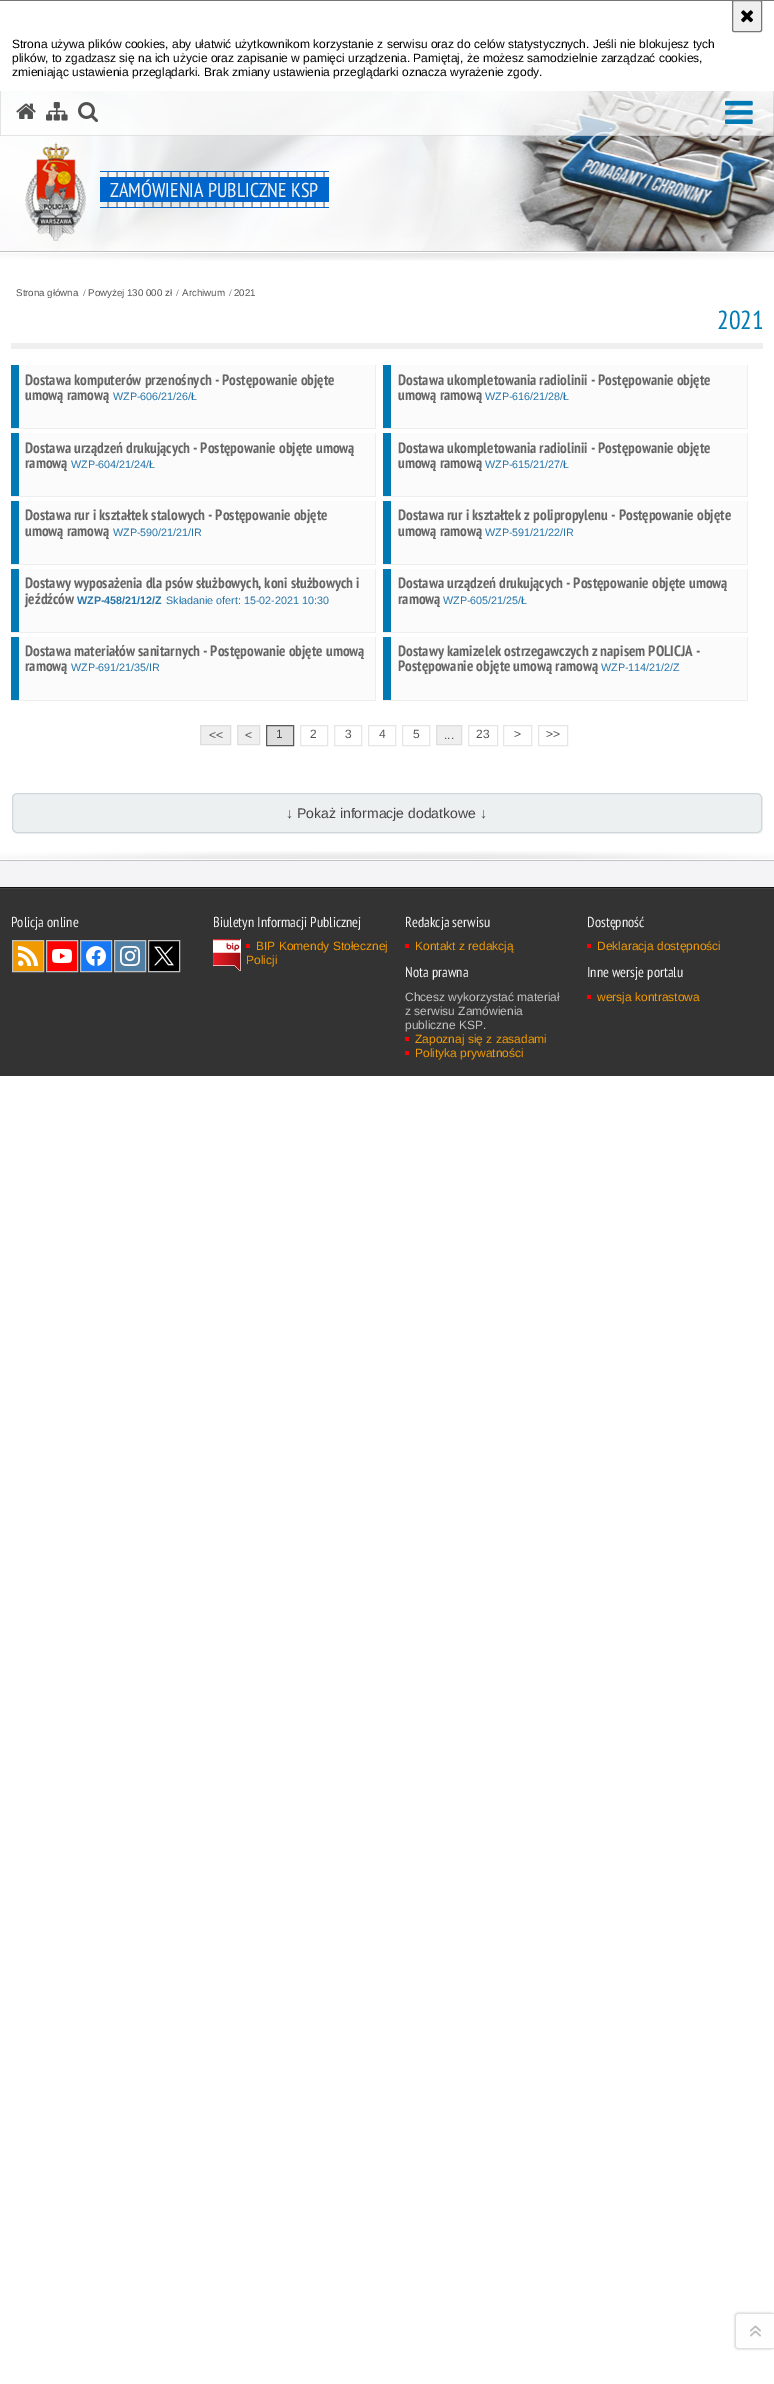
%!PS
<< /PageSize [774 2384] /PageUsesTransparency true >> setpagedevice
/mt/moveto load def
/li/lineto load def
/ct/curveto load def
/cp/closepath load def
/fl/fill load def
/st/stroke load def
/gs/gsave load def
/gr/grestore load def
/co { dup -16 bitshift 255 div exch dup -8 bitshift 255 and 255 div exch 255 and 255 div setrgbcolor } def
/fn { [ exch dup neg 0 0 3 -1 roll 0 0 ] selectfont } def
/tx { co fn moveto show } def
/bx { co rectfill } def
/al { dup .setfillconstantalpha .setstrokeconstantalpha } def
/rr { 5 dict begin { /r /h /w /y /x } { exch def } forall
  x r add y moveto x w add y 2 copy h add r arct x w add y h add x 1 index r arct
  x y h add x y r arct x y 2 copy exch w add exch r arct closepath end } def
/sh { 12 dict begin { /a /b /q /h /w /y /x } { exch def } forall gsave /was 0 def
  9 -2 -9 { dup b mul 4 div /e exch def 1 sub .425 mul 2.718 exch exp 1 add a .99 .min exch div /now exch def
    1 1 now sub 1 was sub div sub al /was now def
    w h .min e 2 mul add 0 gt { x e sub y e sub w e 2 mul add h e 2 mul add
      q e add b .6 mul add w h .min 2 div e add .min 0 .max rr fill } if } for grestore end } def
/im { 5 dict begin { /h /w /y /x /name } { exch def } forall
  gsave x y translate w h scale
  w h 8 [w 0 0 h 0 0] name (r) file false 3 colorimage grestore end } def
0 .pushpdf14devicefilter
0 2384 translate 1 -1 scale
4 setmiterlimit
0 0 774 2384 16#FFFFFF bx
0 0 774 1 16#767676 bx
16#EFEFEF co
732.5 .5 29 31 1.5 rr gs fl gr
16#767676 co
st
(media/1.raw) 741 10 12 13 im
(media/2.raw) 0 91 774 160 im
(media/3.raw) 0 253 774 8 im
(media/4.raw) 0 91 774 160 im
0 251 774 1 16#C1C1C1 bx
0.7 al
0 91 774 45 16#FFFFFF bx
0.1 al
16#000000 co
774 91 mt 774 136 li 773 135 li 773 91 li cp fl
774 136 mt 0 136 li 1 135 li 773 135 li cp fl
0 136 mt 0 91 li 1 91 li 1 135 li cp fl
1 al
(media/5.raw) 16 103 20 16 im
(media/6.raw) 46 102 22 19 im
(media/7.raw) 78 102 20 21 im
(media/8.raw) 725 100 28 24 im
(media/9.raw) 107 172 218 35 im
100 171 229 1 16#0066CC bx
100 207 229 1 16#0066CC bx
(media/10.raw) 25 142 61 99 im
100 177 229 25 16#0066CC bx
11 343 752 6 16#EFEFEF bx
11 428 365 1 16#EEEEEE bx
19 365 356 63 16#FBFBFB bx
375 365 1 63 16#EEEEEE bx
11 365 8 63 16#0079B5 bx
383 428 365 1 16#EEEEEE bx
391 365 356 63 16#FBFBFB bx
747 365 1 63 16#EEEEEE bx
383 365 8 63 16#0079B5 bx
11 496 365 1 16#EEEEEE bx
19 433 356 63 16#FBFBFB bx
375 433 1 63 16#EEEEEE bx
11 433 8 63 16#0079B5 bx
383 496 365 1 16#EEEEEE bx
391 433 356 63 16#FBFBFB bx
747 433 1 63 16#EEEEEE bx
383 433 8 63 16#0079B5 bx
11 564 365 1 16#EEEEEE bx
19 501 356 63 16#FBFBFB bx
375 501 1 63 16#EEEEEE bx
11 501 8 63 16#0079B5 bx
383 564 365 1 16#EEEEEE bx
391 501 356 63 16#FBFBFB bx
747 501 1 63 16#EEEEEE bx
383 501 8 63 16#0079B5 bx
11 632 365 1 16#EEEEEE bx
19 569 356 63 16#FBFBFB bx
375 569 1 63 16#EEEEEE bx
11 569 8 63 16#0079B5 bx
383 632 365 1 16#EEEEEE bx
391 569 356 63 16#FBFBFB bx
747 569 1 63 16#EEEEEE bx
383 569 8 63 16#0079B5 bx
11 700 365 1 16#EEEEEE bx
19 637 356 63 16#FBFBFB bx
375 637 1 63 16#EEEEEE bx
11 637 8 63 16#0079B5 bx
383 700 365 1 16#EEEEEE bx
391 637 356 63 16#FBFBFB bx
747 637 1 63 16#EEEEEE bx
383 637 8 63 16#0079B5 bx
16#EFEFEF co
200.5 725.5 mt 230.5 725.5 li 230.5 744.5 li 200.5 744.5 li cp gs fl gr
16#DEDEDE co
st
16#EFEFEF co
237.5 725.5 mt 259.5 725.5 li 259.5 744.5 li 237.5 744.5 li cp gs fl gr
16#DEDEDE co
st
266.5 725.5 mt 293.5 725.5 li 293.5 745.5 li 266.5 745.5 li cp gs fl gr
16#595959 co
st
16#E6E6E6 co
300.5 725.5 27 20 rectstroke
334.5 725.5 27 20 rectstroke
368.5 725.5 27 20 rectstroke
402.5 725.5 27 20 rectstroke
16#EFEFEF co
436.5 725.5 mt 461.5 725.5 li 461.5 744.5 li 436.5 744.5 li cp gs fl gr
16#DEDEDE co
st
16#E6E6E6 co
468.5 725.5 29 20 rectstroke
503.5 725.5 28 20 rectstroke
538.5 725.5 29 20 rectstroke
16#F2F2F2 co
14 832 mt 15 833 16 834 18 834 ct 758 834 li 761 834 763 832 763 829 ct 763 799 li 763 797 762 796 761 795 ct 762 796 762 797 762 798 ct 762 828 li 762 831 760 833 757 833 ct 17 833 li 16 833 15 833 14 832 ct cp fl
16#ECF0F1 co
12.5 793.5 749 39 4.5 rr gs fl gr
16#CFD9DB co
st
(media/11.raw) 0 851 774 8 im
0 861 774 26 16#F4F4F6 bx
0 860 774 1 16#C2C2C2 bx
0 887 774 1 16#111111 bx
0 889 774 187 16#333333 bx
0 888 774 1 16#424242 bx
13 941 30 30 16#F19900 bx
(media/12.raw) 18 946 20 20 im
16#C1C1C1 co
12.5 940.5 31 31 rectstroke
47 941 30 30 16#FF0000 bx
(media/13.raw) 52 948 20 16 im
16#C1C1C1 co
46.5 940.5 31 31 rectstroke
81 941 30 30 16#1877F2 bx
(media/14.raw) 86 946 20 20 im
16#C1C1C1 co
80.5 940.5 31 31 rectstroke
115 941 30 30 16#517FA4 bx
(media/15.raw) 120 946 20 20 im
16#C1C1C1 co
114.5 940.5 31 31 rectstroke
149 941 30 30 16#000000 bx
(media/16.raw) 154 946 20 20 im
16#C1C1C1 co
148.5 940.5 31 31 rectstroke
(media/17.raw) 213 939 28 32 im
246 944 4 4 16#FF0000 bx
405 944 4 4 16#FF0000 bx
587 944 4 4 16#FF0000 bx
405 1037 4 4 16#FF0000 bx
405 1051 4 4 16#FF0000 bx
587 995 4 4 16#FF0000 bx
16#000000 co
735 2313 39 36 3 1 .25 sh
16#FEFEFE co
738 2313 mt 774 2313 li 774 2349 li 738 2349 li 736.5 2349 735 2347.5 735 2346 ct 735 2316 li 735 2314.5 736.5 2313 738 2313 ct cp fl
16#E1E1E1 co
738 2313 mt 774 2313 li 774 2349 li 738 2349 li 736.5 2349 735 2347.5 735 2346 ct 735 2316 li 735 2314.5 736.5 2313 738 2313 ct cp 738 2314 mt 774 2314 li 774 2348 li 738 2348 li 737 2348 736 2347 736 2346 ct 736 2316 li 736 2315 737 2314 738 2314 ct cp eofill
(media/18.raw) 750 2325 11 12 im
(Strona używa plików cookies, aby ułatwić użytkownikom korzystanie z serwisu oraz do celów statystycznych. Jeśli nie blokujesz tych) 12 48 /LiberationSans-Regular 12 16#000000 tx
(plików, to zgadzasz się na ich użycie oraz zapisanie w pamięci urządzenia. Pamiętaj, że możesz samodzielnie zarządzać cookies,) 12 62 /LiberationSans-Regular 12 16#000000 tx
(zmieniając ustawienia przeglądarki. Brak zmiany ustawienia przeglądarki oznacza wyrażenie zgody.) 12 76 /LiberationSans-Regular 12 16#000000 tx
(ZAMÓWIENIA PUBLICZNE KSP) 110 197 /PTSansNarrow-Regular 20 16#F4F4F6 tx
(Strona główna) 16 296 /LiberationSans-Regular 9.75 16#555555 tx
(/) 83 296 /LiberationSerif-Regular 9.75 16#555555 tx
(Powyżej 130 000 zł) 88 296 /LiberationSans-Regular 9.75 16#555555 tx
(/) 176 296 /LiberationSerif-Regular 9.75 16#555555 tx
(Archiwum) 182 296 /LiberationSans-Regular 9.75 16#555555 tx
(/) 229 296 /LiberationSerif-Regular 9.75 16#555555 tx
(2021) 234 296 /LiberationSans-Regular 9.75 16#555555 tx
(2021) 717 329 /PTSansNarrow-Regular 26 16#0079B5 tx
(Dostawa komputerów przenośnych - Postępowanie objęte) 25 385 /PTSansNarrow-Bold 15.1 16#666666 tx
(umową ramową) 25 400 /PTSansNarrow-Bold 15.1 16#666666 tx
(WZP-606/21/26/Ł) 113 400 /LiberationSans-Regular 10.75 16#2574A9 tx
(Dostawa ukompletowania radiolinii - Postępowanie objęte) 398 385 /PTSansNarrow-Bold 15.1 16#666666 tx
(umową ramową) 398 400 /PTSansNarrow-Bold 15.1 16#666666 tx
(WZP-616/21/28/Ł) 485 400 /LiberationSans-Regular 10.75 16#2574A9 tx
(Dostawa urządzeń drukujących - Postępowanie objęte umową) 25 453 /PTSansNarrow-Bold 15.1 16#666666 tx
(ramową) 25 468 /PTSansNarrow-Bold 15.1 16#666666 tx
(WZP-604/21/24/Ł) 71 468 /LiberationSans-Regular 10.75 16#2574A9 tx
(Dostawa ukompletowania radiolinii - Postępowanie objęte) 398 453 /PTSansNarrow-Bold 15.1 16#666666 tx
(umową ramową) 398 468 /PTSansNarrow-Bold 15.1 16#666666 tx
(WZP-615/21/27/Ł) 485 468 /LiberationSans-Regular 10.75 16#2574A9 tx
(Dostawa rur i kształtek stalowych - Postępowanie objęte) 25 520 /PTSansNarrow-Bold 15.1 16#666666 tx
(umową ramową) 25 536 /PTSansNarrow-Bold 15.1 16#666666 tx
(WZP-590/21/21/IR) 113 536 /LiberationSans-Regular 10.75 16#2574A9 tx
(Dostawa rur i kształtek z polipropylenu - Postępowanie objęte) 398 520 /PTSansNarrow-Bold 15.1 16#666666 tx
(umową ramową) 398 536 /PTSansNarrow-Bold 15.1 16#666666 tx
(WZP-591/21/22/IR) 485 536 /LiberationSans-Regular 10.75 16#2574A9 tx
(Dostawy wyposażenia dla psów służbowych, koni służbowych i) 25 588 /PTSansNarrow-Bold 15.1 16#666666 tx
(jeźdźców) 25 604 /PTSansNarrow-Bold 15.1 16#666666 tx
(WZP-458/21/12/Z) 77 604 /LiberationSans-Bold 10.75 16#2574A9 tx
(Składanie ofert: 15-02-2021 10:30) 166 604 /LiberationSans-Regular 10.75 16#2574A9 tx
(Dostawa urządzeń drukujących - Postępowanie objęte umową) 398 588 /PTSansNarrow-Bold 15.1 16#666666 tx
(ramową) 398 604 /PTSansNarrow-Bold 15.1 16#666666 tx
(WZP-605/21/25/Ł) 443 604 /LiberationSans-Regular 10.75 16#2574A9 tx
(Dostawa materiałów sanitarnych - Postępowanie objęte umową) 25 656 /PTSansNarrow-Bold 15.1 16#666666 tx
(ramową) 25 671 /PTSansNarrow-Bold 15.1 16#666666 tx
(WZP-691/21/35/IR) 71 671 /LiberationSans-Regular 10.75 16#2574A9 tx
(Dostawy kamizelek ostrzegawczych z napisem POLICJA -) 398 656 /PTSansNarrow-Bold 15.1 16#666666 tx
(Postępowanie objęte umową ramową) 398 671 /PTSansNarrow-Bold 15.1 16#666666 tx
(WZP-114/21/2/Z) 601 671 /LiberationSans-Regular 10.75 16#2574A9 tx
(<<) 209 739 /LiberationSans-Regular 12 16#555555 tx
(<) 245 739 /LiberationSans-Regular 12 16#555555 tx
(1) 276 738 /LiberationSans-Regular 12 16#444444 tx
(2) 310 738 /LiberationSans-Regular 12 16#555555 tx
(3) 345 738 /LiberationSans-Regular 12 16#555555 tx
(4) 379 738 /LiberationSans-Regular 12 16#555555 tx
(5) 413 738 /LiberationSans-Regular 12 16#555555 tx
(...) 444 739 /LiberationSans-Regular 12 16#555555 tx
(23) 476 738 /LiberationSans-Regular 12 16#555555 tx
(>) 514 738 /LiberationSans-Regular 12 16#555555 tx
(>>) 546 738 /LiberationSans-Regular 12 16#555555 tx
(↓ Pokaż informacje dodatkowe ↓) 286 818 /LiberationSans-Regular 14 16#444444 tx
(Policja online) 11 927 /PTSansNarrow-Regular 14.4 16#F4F4F6 tx
(Biuletyn Informacji Publicznej) 213 927 /PTSansNarrow-Regular 14.4 16#F4F4F6 tx
(BIP Komendy Stołecznej) 256 950 /LiberationSans-Regular 12 16#F19900 tx
(Policji) 246 964 /LiberationSans-Regular 12 16#F19900 tx
(Redakcja serwisu) 405 927 /PTSansNarrow-Regular 14.4 16#F4F4F6 tx
(Kontakt z redakcją) 415 950 /LiberationSans-Regular 12 16#F19900 tx
(Dostępność) 587 927 /PTSansNarrow-Regular 14.4 16#F4F4F6 tx
(Deklaracja dostępności) 597 950 /LiberationSans-Regular 12 16#F19900 tx
(Nota prawna) 405 977 /PTSansNarrow-Regular 14.4 16#F4F4F6 tx
(Chcesz wykorzystać materiał) 405 1001 /LiberationSans-Regular 12 16#C2C2C2 tx
(z serwisu Zamówienia) 405 1015 /LiberationSans-Regular 12 16#C2C2C2 tx
(publiczne KSP.) 405 1029 /LiberationSans-Regular 12 16#C2C2C2 tx
(Zapoznaj się z zasadami) 415 1043 /LiberationSans-Regular 12 16#F19900 tx
(Polityka prywatności) 415 1057 /LiberationSans-Regular 12 16#F19900 tx
(Inne wersje portalu) 587 977 /PTSansNarrow-Regular 14.4 16#F4F4F6 tx
(wersja kontrastowa) 597 1001 /LiberationSans-Regular 12 16#F19900 tx
.poppdf14devicefilter showpage
